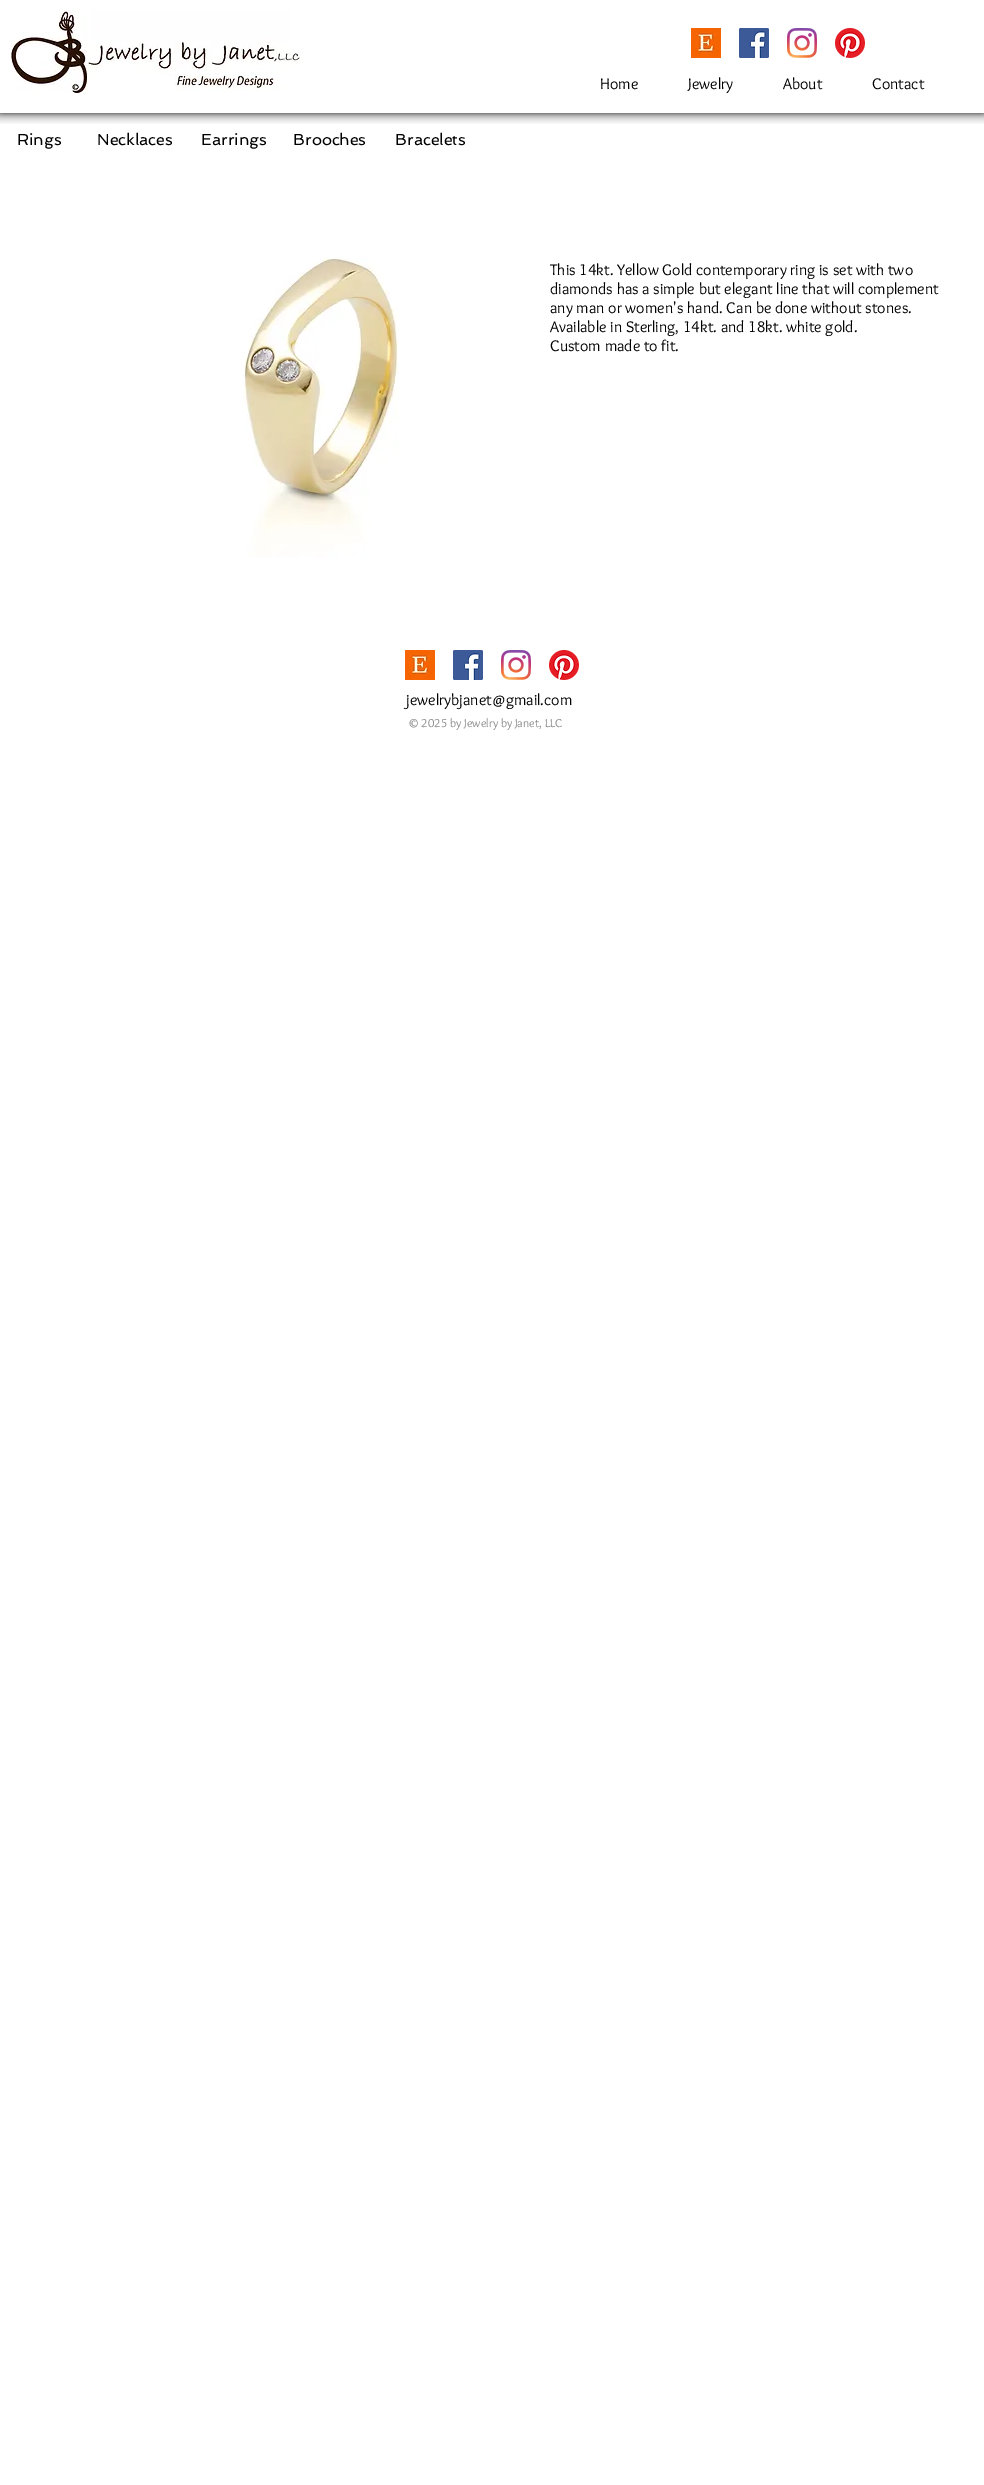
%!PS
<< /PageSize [984 2485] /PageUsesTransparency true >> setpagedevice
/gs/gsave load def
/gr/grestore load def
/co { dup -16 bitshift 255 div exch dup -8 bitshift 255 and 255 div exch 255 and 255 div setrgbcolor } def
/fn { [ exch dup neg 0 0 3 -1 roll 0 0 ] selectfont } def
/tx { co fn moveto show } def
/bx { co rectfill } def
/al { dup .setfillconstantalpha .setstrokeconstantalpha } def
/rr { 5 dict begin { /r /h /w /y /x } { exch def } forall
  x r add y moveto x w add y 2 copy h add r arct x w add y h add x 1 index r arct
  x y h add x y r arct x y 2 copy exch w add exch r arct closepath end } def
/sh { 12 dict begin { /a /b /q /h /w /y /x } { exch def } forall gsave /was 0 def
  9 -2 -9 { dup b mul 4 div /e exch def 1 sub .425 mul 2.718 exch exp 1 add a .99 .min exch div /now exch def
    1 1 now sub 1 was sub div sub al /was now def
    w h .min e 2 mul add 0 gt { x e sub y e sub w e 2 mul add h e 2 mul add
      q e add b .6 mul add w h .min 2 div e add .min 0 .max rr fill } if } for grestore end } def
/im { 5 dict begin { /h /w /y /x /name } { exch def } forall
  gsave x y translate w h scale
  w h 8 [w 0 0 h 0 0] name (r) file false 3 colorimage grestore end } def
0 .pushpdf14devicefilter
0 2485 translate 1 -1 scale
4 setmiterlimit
0 0 984 2485 16#FFFFFF bx
gs
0 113 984 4 rectclip
16#000000 co
0 0 984 113 0 2.5 .5 sh
gr
(media/1.raw) 11 10 290 84 im
(media/2.raw) 691 28 30 30 im
(media/3.raw) 739 28 30 30 im
(media/4.raw) 787 28 30 30 im
(media/5.raw) 835 28 30 30 im
(media/6.raw) 0 113 984 11 im
(media/7.raw) 242 258 157 299 im
(media/2.raw) 405 650 30 30 im
(media/3.raw) 453 650 30 30 im
(media/4.raw) 501 650 30 30 im
(media/5.raw) 549 650 30 30 im
(Home) 600 89 /Overlock-Regular 16 16#000000 tx
(Jewelry) 688 89 /Overlock-Regular 16 16#000000 tx
(About) 783 89 /Overlock-Regular 16 16#000000 tx
(Contact) 872 89 /Overlock-Regular 16 16#000000 tx
(Rings) 17 145 /Spinnaker-Regular 16 16#000000 tx
(Necklaces) 97 145 /Spinnaker-Regular 16 16#000000 tx
(Earrings) 201 145 /Spinnaker-Regular 16 16#000000 tx
(Brooches) 293 145 /Spinnaker-Regular 16 16#000000 tx
(Bracelets) 395 145 /Spinnaker-Regular 16 16#000000 tx
(This 14kt. Yellow Gold contemporary ring is set with two) 550 275 /Overlock-Regular 16 16#000000 tx
(diamonds has a simple but elegant line that will complement) 550 294 /Overlock-Regular 16 16#000000 tx
(any man or women's hand. Can be done without stones.) 550 313 /Overlock-Regular 16 16#000000 tx
(Available in Sterling, 14kt. and 18kt. white gold.) 550 332 /Overlock-Regular 16 16#000000 tx
(Custom made to fit.) 550 351 /Overlock-Regular 16 16#000000 tx
(jewelrybjanet@gmail.com) 406 705 /Overlock-Regular 16 16#000000 tx
(© 2025 by Jewelry by Janet, LLC) 408 727 /Overlock-Regular 12 16#8B8A8A tx
.poppdf14devicefilter showpage
